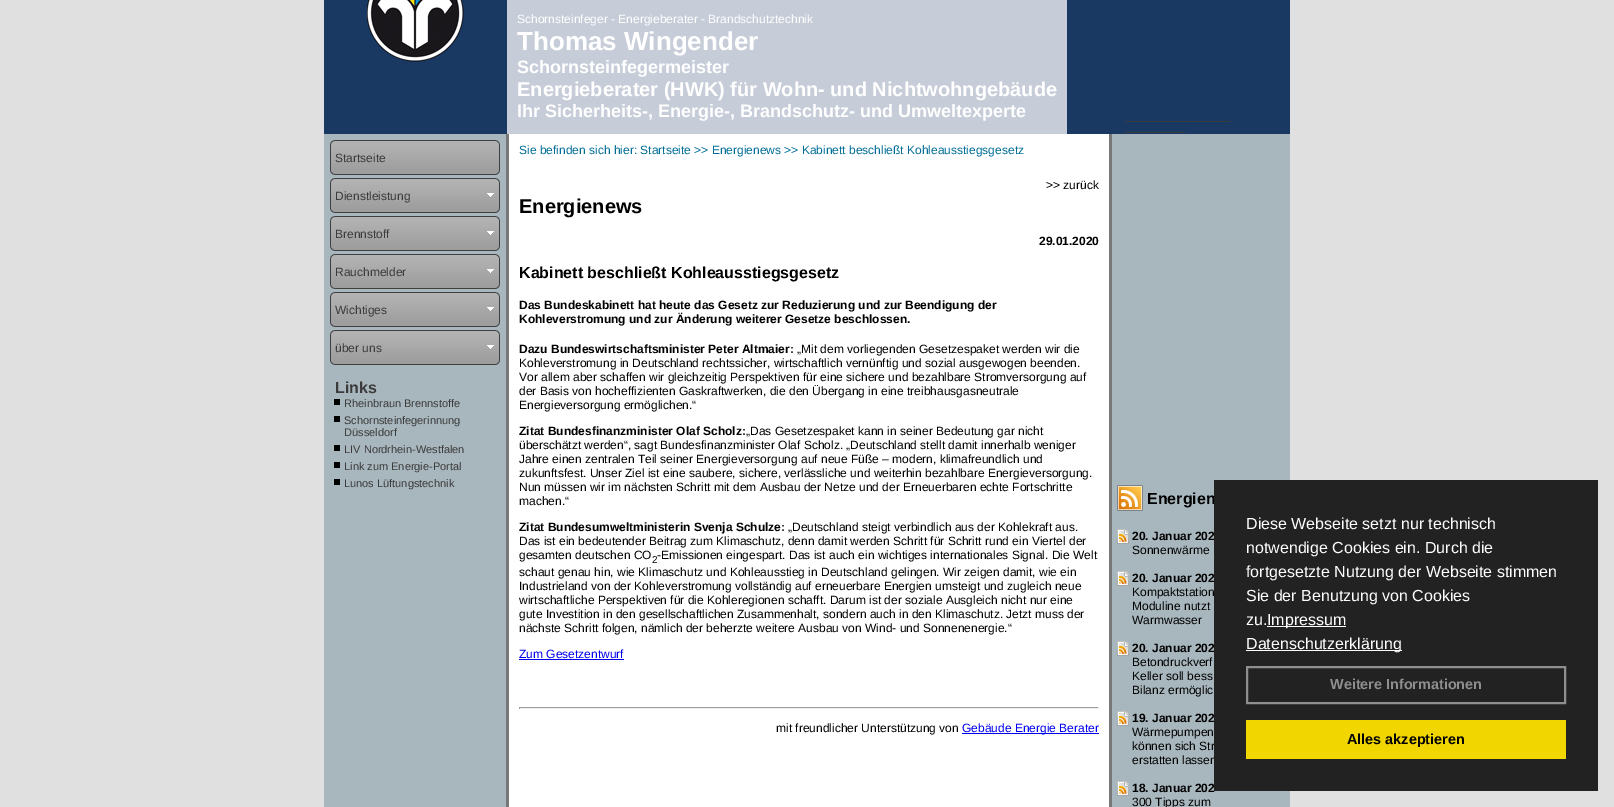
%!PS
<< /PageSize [1614 807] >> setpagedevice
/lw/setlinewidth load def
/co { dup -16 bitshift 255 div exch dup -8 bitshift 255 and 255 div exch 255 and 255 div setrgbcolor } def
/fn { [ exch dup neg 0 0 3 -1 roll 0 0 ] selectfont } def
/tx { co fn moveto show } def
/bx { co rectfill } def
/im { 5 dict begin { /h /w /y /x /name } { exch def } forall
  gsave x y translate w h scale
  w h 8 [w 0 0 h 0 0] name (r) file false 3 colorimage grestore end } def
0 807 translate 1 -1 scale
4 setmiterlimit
0 0 1614 807 16#E0E0E0 bx
324 0 966 134 16#193862 bx
(media/1.raw) 367 0 97 62 im
507 0 560 134 16#C6CDD8 bx
1125 121 106 1 16#3B3B3B bx
1125 132 60 1 16#3B3B3B bx
324 134 182 673 16#A8B6BD bx
(media/2.raw) 330 140 170 35 im
(media/2.raw) 330 178 170 35 im
(media/3.raw) 487 193 7 4 im
(media/2.raw) 330 216 170 35 im
(media/3.raw) 487 231 7 4 im
(media/2.raw) 330 254 170 35 im
(media/3.raw) 487 269 7 4 im
(media/2.raw) 330 292 170 35 im
(media/3.raw) 487 307 7 4 im
(media/2.raw) 330 330 170 35 im
(media/3.raw) 487 345 7 4 im
334 399 6 6 16#010000 bx
334 416 6 6 16#010000 bx
334 445 6 6 16#010000 bx
334 462 6 6 16#010000 bx
334 479 6 6 16#010000 bx
506 134 3 673 16#787878 bx
509 134 600 673 16#FFFFFF bx
519 659 105 1 16#0000EE bx
519 707 580 1 16#9F9F9F bx
1098 707 1 2 16#EEEEEE bx
519 708 580 1 16#EEEEEE bx
519 707 1 2 16#9F9F9F bx
962 733 137 1 16#0000EE bx
1109 134 3 673 16#787878 bx
1112 134 178 673 16#A8B6BD bx
(media/4.raw) 1117 485 26 26 im
(media/5.raw) 1117 529 12 15 im
(media/5.raw) 1117 571 12 15 im
(media/5.raw) 1117 641 12 15 im
(media/5.raw) 1117 711 12 15 im
(media/5.raw) 1117 781 12 15 im
(Schornsteinfeger - Energieberater - Brandschutztechnik) 517 23 /LiberationSans-Regular 12 16#FFFFFF tx
(Thomas Wingender) 517 50 /LiberationSans-Bold 26 16#FFFFFF tx
(Schornsteinfegermeister) 517 73 /LiberationSans-Bold 18 16#FFFFFF tx
(Energieberater \(HWK\) für Wohn- und Nichtwohngebäude) 517 96 /LiberationSans-Bold 20 16#FFFFFF tx
(Ihr Sicherheits-, Energie-, Brandschutz- und Umweltexperte) 517 117 /LiberationSans-Bold 18 16#FFFFFF tx
(Startseite) 335 162 /LiberationSans-Regular 12 16#3B3B3B tx
(Dienstleistung) 335 200 /LiberationSans-Regular 12 16#3B3B3B tx
(Brennstoff) 335 238 /LiberationSans-Regular 12 16#3B3B3B tx
(Rauchmelder) 335 276 /LiberationSans-Regular 12 16#3B3B3B tx
(Wichtiges) 335 314 /LiberationSans-Regular 12 16#3B3B3B tx
(über uns) 335 352 /LiberationSans-Regular 12 16#3B3B3B tx
(Links) 335 393 /LiberationSans-Bold 16 16#3B3B3B tx
(Rheinbraun Brennstoffe) 344 407 /LiberationSans-Regular 11 16#3B3B3B tx
(Schornsteinfegerinnung) 344 424 /LiberationSans-Regular 11 16#3B3B3B tx
(Düsseldorf) 344 436 /LiberationSans-Regular 11 16#3B3B3B tx
(LIV Nordrhein-Westfalen) 344 453 /LiberationSans-Regular 11 16#3B3B3B tx
(Link zum Energie-Portal) 344 470 /LiberationSans-Regular 11 16#3B3B3B tx
(Lunos Lüftungstechnik) 344 487 /LiberationSans-Regular 11 16#3B3B3B tx
(Sie befinden sich hier: Startseite >> Energienews >> Kabinett beschließt Kohleausstiegsgesetz) 519 154 /LiberationSans-Regular 12 16#006D98 tx
(>> zurück) 1046 189 /LiberationSans-Regular 12 16#000000 tx
(Energienews) 519 213 /LiberationSans-Bold 20 16#000000 tx
(29.01.2020) 1039 245 /LiberationSans-Bold 12 16#000000 tx
(Kabinett beschließt Kohleausstiegsgesetz) 519 278 /LiberationSans-Bold 16 16#000000 tx
(Das Bundeskabinett hat heute das Gesetz zur Reduzierung und zur Beendigung der) 519 309 /LiberationSans-Bold 12 16#000000 tx
(Kohleverstromung und zur Änderung weiterer Gesetze beschlossen.) 519 323 /LiberationSans-Bold 12 16#000000 tx
(Dazu Bundeswirtschaftsminister Peter Altmaier:) 519 353 /LiberationSans-Bold 12 16#000000 tx
(„Mit dem vorliegenden Gesetzespaket werden wir die) 797 353 /LiberationSans-Regular 12 16#000000 tx
(Kohleverstromung in Deutschland rechtssicher, wirtschaftlich vernünftig und sozial ausgewogen beenden.) 519 367 /LiberationSans-Regular 12 16#000000 tx
(Vor allem aber schaffen wir gleichzeitig Perspektiven für eine sichere und bezahlbare Stromversorgung auf) 519 381 /LiberationSans-Regular 12 16#000000 tx
(der Basis von hocheffizienten Gaskraftwerken, die den Übergang in eine treibhausgasneutrale) 519 395 /LiberationSans-Regular 12 16#000000 tx
(Energieversorgung ermöglichen.“) 519 409 /LiberationSans-Regular 12 16#000000 tx
(Zitat Bundesfinanzminister Olaf Scholz:) 519 435 /LiberationSans-Bold 12 16#000000 tx
(„Das Gesetzespaket kann in seiner Bedeutung gar nicht) 746 435 /LiberationSans-Regular 12 16#000000 tx
(überschätzt werden“, sagt Bundesfinanzminister Olaf Scholz. „Deutschland stellt damit innerhalb weniger) 519 449 /LiberationSans-Regular 12 16#000000 tx
(Jahre einen zentralen Teil seiner Energieversorgung auf neue Füße – modern, klimafreundlich und) 519 463 /LiberationSans-Regular 12 16#000000 tx
(zukunftsfest. Unser Ziel ist eine saubere, sichere, verlässliche und weiterhin bezahlbare Energieversorgung.) 519 477 /LiberationSans-Regular 12 16#000000 tx
(Nun müssen wir im nächsten Schritt mit dem Ausbau der Netze und der Erneuerbaren echte Fortschritte) 519 491 /LiberationSans-Regular 12 16#000000 tx
(machen.“) 519 505 /LiberationSans-Regular 12 16#000000 tx
(Zitat Bundesumweltministerin Svenja Schulze:) 519 531 /LiberationSans-Bold 12 16#000000 tx
(„Deutschland steigt verbindlich aus der Kohlekraft aus.) 788 531 /LiberationSans-Regular 12 16#000000 tx
(Das ist ein bedeutender Beitrag zum Klimaschutz, denn damit werden Schritt für Schritt rund ein Viertel der) 519 545 /LiberationSans-Regular 12 16#000000 tx
(gesamten deutschen CO) 519 559 /LiberationSans-Regular 12 16#000000 tx
(2) 652 563 /LiberationSans-Regular 10 16#000000 tx
(-Emissionen eingespart. Das ist auch ein wichtiges internationales Signal. Die Welt) 657 559 /LiberationSans-Regular 12 16#000000 tx
(schaut genau hin, wie Klimaschutz und Kohleausstieg in Deutschland gelingen. Wir zeigen damit, wie ein) 519 576 /LiberationSans-Regular 12 16#000000 tx
(Industrieland von der Kohleverstromung vollständig auf erneuerbare Energien umsteigt und zugleich neue) 519 590 /LiberationSans-Regular 12 16#000000 tx
(wirtschaftliche Perspektiven für die Kohleregionen schafft. Darum ist der soziale Ausgleich nicht nur eine) 519 604 /LiberationSans-Regular 12 16#000000 tx
(gute Investition in den gesellschaftlichen Zusammenhalt, sondern auch in den Klimaschutz. Jetzt muss der) 519 618 /LiberationSans-Regular 12 16#000000 tx
(nächste Schritt folgen, nämlich der beherzte weitere Ausbau von Wind- und Sonnenenergie.“) 519 632 /LiberationSans-Regular 12 16#000000 tx
(Zum Gesetzentwurf) 519 658 /LiberationSans-Regular 12 16#0000EE tx
(mit freundlicher Unterstützung von) 776 732 /LiberationSans-Regular 12 16#000000 tx
(Gebäude Energie Berater) 962 732 /LiberationSans-Regular 12 16#0000EE tx
(Energien) 1147 504 /LiberationSans-Bold 16 16#000000 tx
(20. Januar 202) 1132 540 /LiberationSans-Bold 12 16#000000 tx
(Sonnenwärme) 1132 554 /LiberationSans-Regular 12 16#000000 tx
(20. Januar 202) 1132 582 /LiberationSans-Bold 12 16#000000 tx
(Kompaktstation) 1132 596 /LiberationSans-Regular 12 16#000000 tx
(Moduline nutzt) 1132 610 /LiberationSans-Regular 12 16#000000 tx
(Warmwasser) 1132 624 /LiberationSans-Regular 12 16#000000 tx
(20. Januar 202) 1132 652 /LiberationSans-Bold 12 16#000000 tx
(Betondruckverf) 1132 666 /LiberationSans-Regular 12 16#000000 tx
(Keller soll bess) 1132 680 /LiberationSans-Regular 12 16#000000 tx
(Bilanz ermöglic) 1132 694 /LiberationSans-Regular 12 16#000000 tx
(19. Januar 202) 1132 722 /LiberationSans-Bold 12 16#000000 tx
(Wärmepumpen) 1132 736 /LiberationSans-Regular 12 16#000000 tx
(können sich Str) 1132 750 /LiberationSans-Regular 12 16#000000 tx
(erstatten lassen) 1132 764 /LiberationSans-Regular 12 16#000000 tx
(18. Januar 202) 1132 792 /LiberationSans-Bold 12 16#000000 tx
(300 Tipps zum) 1132 806 /LiberationSans-Regular 12 16#000000 tx
1214 480 384 311 16#222222 bx
(Diese Webseite setzt nur technisch) 1246 529 /LiberationSans-Regular 16 16#FFFFFF tx
(notwendige Cookies ein. Durch die) 1246 553 /LiberationSans-Regular 16 16#FFFFFF tx
(fortgesetzte Nutzung der Webseite stimmen) 1246 577 /LiberationSans-Regular 16 16#FFFFFF tx
(Sie der Benutzung von Cookies) 1246 601 /LiberationSans-Regular 16 16#FFFFFF tx
(zu.) 1246 625 /LiberationSans-Regular 16 16#FFFFFF tx
1267 626 79 1 16#FFFFFF bx
(Impressum) 1267 625 /LiberationSans-Regular 16 16#FFFFFF tx
1246 650 156 1 16#FFFFFF bx
(Datenschutzerklärung) 1246 649 /LiberationSans-Regular 16 16#FFFFFF tx
16#8F8F8F co
2 lw
1247 667 318 36 rectstroke
(Weitere Informationen) 1330 689 /LiberationSans-Bold 14.4 16#8F8F8F tx
1246 720 320 39 16#F1D600 bx
(Alles akzeptieren) 1347 744 /LiberationSans-Bold 14.4 16#000000 tx
showpage
